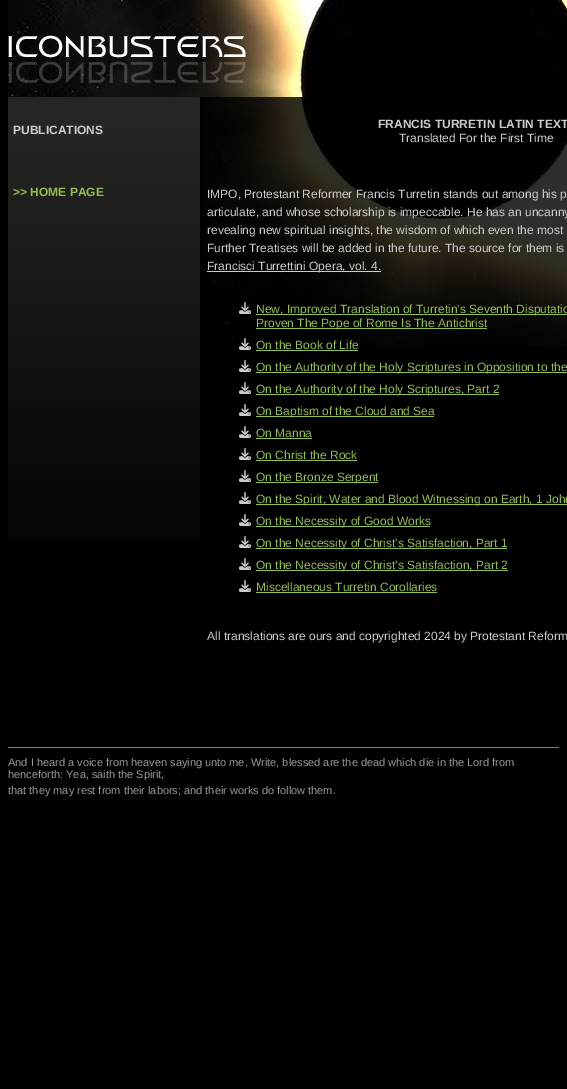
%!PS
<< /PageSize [567 1089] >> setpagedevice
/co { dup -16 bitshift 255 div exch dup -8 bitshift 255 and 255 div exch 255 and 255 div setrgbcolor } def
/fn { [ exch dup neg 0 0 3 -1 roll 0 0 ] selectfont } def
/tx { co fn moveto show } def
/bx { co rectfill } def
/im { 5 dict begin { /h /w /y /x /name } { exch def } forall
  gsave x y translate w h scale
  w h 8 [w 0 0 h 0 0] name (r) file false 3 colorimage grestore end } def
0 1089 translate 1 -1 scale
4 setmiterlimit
0 0 567 1089 16#000000 bx
(media/1.raw) 8 0 559 97 im
(media/2.raw) 8 97 192 442 im
(media/3.raw) 202 97 365 250 im
207 271 174 1 16#CCCCCC bx
(media/4.raw) 239 302 12 12 im
256 314 311 1 16#93BD55 bx
256 328 231 1 16#93BD55 bx
(media/5.raw) 239 338 12 12 im
256 350 102 1 16#93BD55 bx
(media/6.raw) 239 360 12 12 im
256 372 311 1 16#93BD55 bx
(media/6.raw) 239 382 12 12 im
256 394 243 1 16#93BD55 bx
(media/6.raw) 239 404 12 12 im
256 416 178 1 16#93BD55 bx
(media/6.raw) 239 426 12 12 im
256 438 56 1 16#93BD55 bx
(media/6.raw) 239 448 12 12 im
256 460 101 1 16#93BD55 bx
(media/6.raw) 239 470 12 12 im
256 482 122 1 16#93BD55 bx
(media/6.raw) 239 492 12 12 im
256 504 311 1 16#93BD55 bx
(media/6.raw) 239 514 12 12 im
256 526 174 1 16#93BD55 bx
(media/6.raw) 239 536 12 12 im
256 548 251 1 16#93BD55 bx
(media/6.raw) 239 558 12 12 im
256 570 252 1 16#93BD55 bx
(media/6.raw) 239 580 12 12 im
256 592 181 1 16#93BD55 bx
8 747 551 1 16#808080 bx
(PUBLICATIONS) 13 134 /LiberationSans-Bold 12 16#CCCCCC tx
(>> HOME PAGE) 13 196 /LiberationSans-Bold 12 16#93BD55 tx
(FRANCIS TURRETIN LATIN TEXT) 378 128 /LiberationSans-Bold 12 16#CCCCCC tx
(Translated For the First Time) 399 142 /LiberationSans-Regular 12 16#CCCCCC tx
(IMPO, Protestant Reformer Francis Turretin stands out among his p) 207 198 /LiberationSans-Regular 12 16#CCCCCC tx
(articulate, and whose scholarship is impeccable. He has an uncanny) 207 216 /LiberationSans-Regular 12 16#CCCCCC tx
(revealing new spiritual insights, the wisdom of which even the most) 207 234 /LiberationSans-Regular 12 16#CCCCCC tx
(Further Treatises will be added in the future. The source for them is) 207 252 /LiberationSans-Regular 12 16#CCCCCC tx
(Francisci Turrettini Opera, vol. 4.) 207 270 /LiberationSans-Regular 12 16#CCCCCC tx
(New, Improved Translation of Turretin's Seventh Disputatio) 256 313 /LiberationSans-Regular 12 16#93BD55 tx
(Proven The Pope of Rome Is The Antichrist) 256 327 /LiberationSans-Regular 12 16#93BD55 tx
(On the Book of Life) 256 349 /LiberationSans-Regular 12 16#93BD55 tx
(On the Authority of the Holy Scriptures in Opposition to the) 256 371 /LiberationSans-Regular 12 16#93BD55 tx
(On the Authority of the Holy Scriptures, Part 2) 256 393 /LiberationSans-Regular 12 16#93BD55 tx
(On Baptism of the Cloud and Sea) 256 415 /LiberationSans-Regular 12 16#93BD55 tx
(On Manna) 256 437 /LiberationSans-Regular 12 16#93BD55 tx
(On Christ the Rock) 256 459 /LiberationSans-Regular 12 16#93BD55 tx
(On the Bronze Serpent) 256 481 /LiberationSans-Regular 12 16#93BD55 tx
(On the Spirit, Water and Blood Witnessing on Earth, 1 John) 256 503 /LiberationSans-Regular 12 16#93BD55 tx
(On the Necessity of Good Works) 256 525 /LiberationSans-Regular 12 16#93BD55 tx
(On the Necessity of Christ's Satisfaction, Part 1) 256 547 /LiberationSans-Regular 12 16#93BD55 tx
(On the Necessity of Christ’s Satisfaction, Part 2) 256 569 /LiberationSans-Regular 12 16#93BD55 tx
(Miscellaneous Turretin Corollaries) 256 591 /LiberationSans-Regular 12 16#93BD55 tx
(All translations are ours and copyrighted 2024 by Protestant Reform) 207 640 /LiberationSans-Regular 12 16#CCCCCC tx
(And I heard a voice from heaven saying unto me, Write, blessed are the dead which die in the Lord from) 8 766 /LiberationSans-Regular 11 16#999999 tx
(henceforth: Yea, saith the Spirit,) 8 778 /LiberationSans-Regular 11 16#999999 tx
(that they may rest from their labors; and their works do follow them.) 8 794 /LiberationSans-Regular 11 16#999999 tx
showpage
